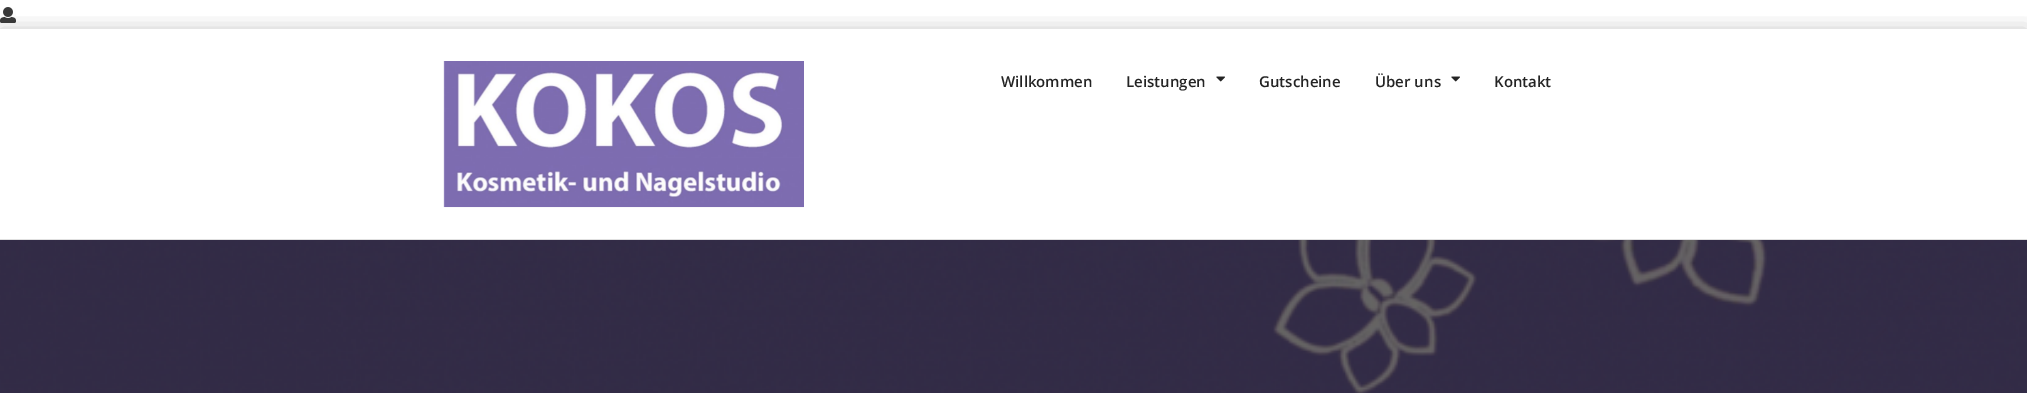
%!PS
<< /PageSize [2027 393] /PageUsesTransparency true >> setpagedevice
/gs/gsave load def
/gr/grestore load def
/co { dup -16 bitshift 255 div exch dup -8 bitshift 255 and 255 div exch 255 and 255 div setrgbcolor } def
/fn { [ exch dup neg 0 0 3 -1 roll 0 0 ] selectfont } def
/tx { co fn moveto show } def
/bx { co rectfill } def
/al { dup .setfillconstantalpha .setstrokeconstantalpha } def
/rr { 5 dict begin { /r /h /w /y /x } { exch def } forall
  x r add y moveto x w add y 2 copy h add r arct x w add y h add x 1 index r arct
  x y h add x y r arct x y 2 copy exch w add exch r arct closepath end } def
/sh { 12 dict begin { /a /b /q /h /w /y /x } { exch def } forall gsave /was 0 def
  9 -2 -9 { dup b mul 4 div /e exch def 1 sub .425 mul 2.718 exch exp 1 add a .99 .min exch div /now exch def
    1 1 now sub 1 was sub div sub al /was now def
    w h .min e 2 mul add 0 gt { x e sub y e sub w e 2 mul add h e 2 mul add
      q e add b .6 mul add w h .min 2 div e add .min 0 .max rr fill } if } for grestore end } def
/im { 5 dict begin { /h /w /y /x /name } { exch def } forall
  gsave x y translate w h scale
  w h 8 [w 0 0 h 0 0] name (r) file false 3 colorimage grestore end } def
0 .pushpdf14devicefilter
0 393 translate 1 -1 scale
4 setmiterlimit
0 0 2027 393 16#FFFFFF bx
gs
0 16 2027 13 rectclip
16#000000 co
0 29 2027 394 0 10 .2 sh
gr
(media/1.raw) 0 7 16 16 im
0 239 2027 1 16#E0E0E0 bx
(media/2.raw) 443 61 361 147 im
(media/3.raw) 1216 76 9 6 im
(media/3.raw) 1451 76 9 6 im
(media/4.raw) 0 240 2027 153 im
(Willkommen) 1001 87 /OpenSans-SemiBold 15 16#242424 tx
(Leistungen) 1126 87 /OpenSans-SemiBold 15 16#242424 tx
(Gutscheine) 1259 87 /OpenSans-SemiBold 15 16#242424 tx
(Über uns) 1375 87 /OpenSans-SemiBold 15 16#242424 tx
(Kontakt) 1494 87 /OpenSans-SemiBold 15 16#242424 tx
.poppdf14devicefilter showpage
